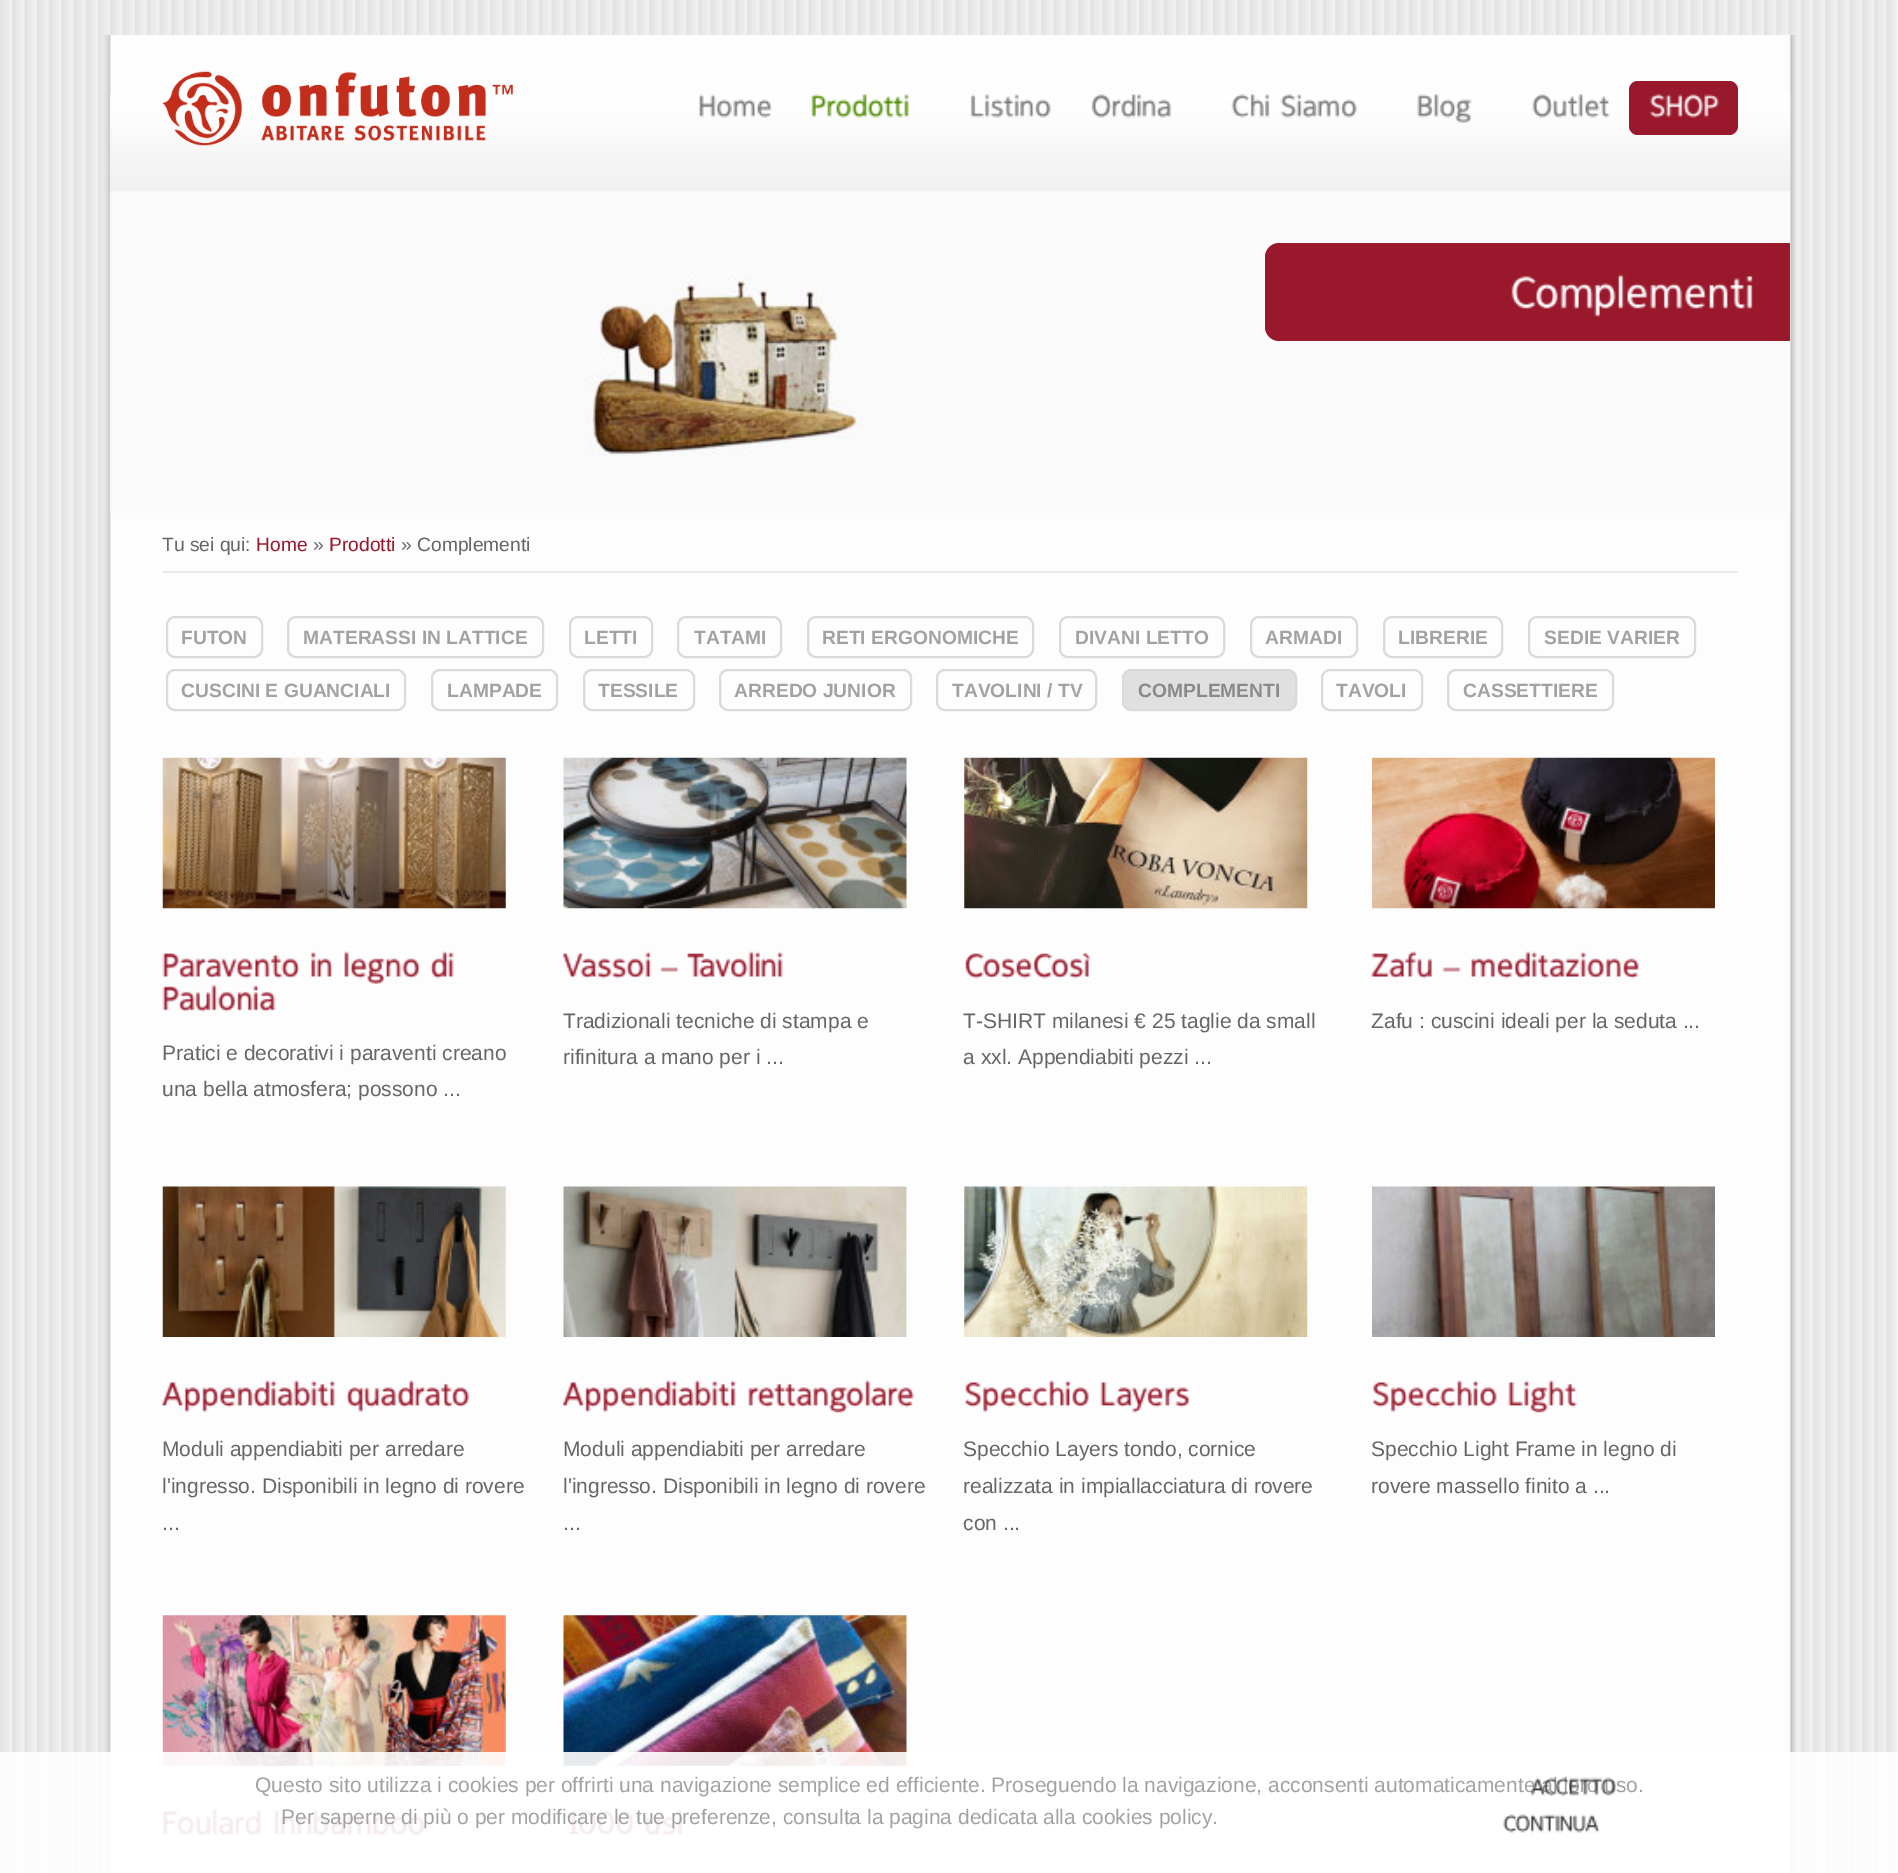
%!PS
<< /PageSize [1898 1873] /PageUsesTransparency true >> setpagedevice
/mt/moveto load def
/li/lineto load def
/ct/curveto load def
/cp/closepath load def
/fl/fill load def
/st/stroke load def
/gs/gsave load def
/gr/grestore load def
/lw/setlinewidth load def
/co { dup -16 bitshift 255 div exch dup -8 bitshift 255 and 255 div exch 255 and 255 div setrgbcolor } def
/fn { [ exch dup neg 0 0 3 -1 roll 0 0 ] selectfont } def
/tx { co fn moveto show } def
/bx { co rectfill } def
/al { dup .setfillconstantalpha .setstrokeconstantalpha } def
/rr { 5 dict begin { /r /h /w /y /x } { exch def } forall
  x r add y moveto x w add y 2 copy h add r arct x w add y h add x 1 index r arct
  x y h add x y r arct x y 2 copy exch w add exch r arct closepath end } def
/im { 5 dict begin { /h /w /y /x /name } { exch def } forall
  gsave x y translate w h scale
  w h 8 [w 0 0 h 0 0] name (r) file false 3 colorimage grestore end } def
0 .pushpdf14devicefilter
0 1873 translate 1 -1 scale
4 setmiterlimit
0 0 1898 1873 16#F2F2F2 bx
(media/1.raw) 0 0 1896 1873 im
(media/2.raw) 104 35 1692 1838 im
(media/3.raw) 110 94 1681 97 im
(media/4.raw) 162 71 351 75 im
(media/5.raw) 698 94 74 24 im
(media/6.raw) 811 94 98 24 im
(media/7.raw) 970 94 81 24 im
(media/8.raw) 1091 94 81 24 im
(media/9.raw) 1231 94 39 24 im
(media/10.raw) 1280 94 77 24 im
(media/11.raw) 1417 94 55 29 im
(media/12.raw) 1532 94 79 24 im
16#99182C co
1629 81 109 54 9 rr fl
(media/13.raw) 1650 94 69 24 im
(media/14.raw) 110 191 1681 322 im
1279 243 mt 1790 243 li 1790 341 li 1279 341 li 1271.5 341 1265 334.5 1265 327 ct 1265 257 li 1265 249.5 1271.5 243 1279 243 ct cp fl
(media/15.raw) 1511 274 242 43 im
163 571 1575 2 16#EAEAEA bx
16#DADADA co
2 lw
167 617 95 40 8 rr st
288 617 255 40 8 rr st
570 617 82 40 8 rr st
678 617 103 40 8 rr st
808 617 225 40 8 rr st
1060 617 164 40 8 rr st
1251 617 106 40 8 rr st
1384 617 118 40 8 rr st
1529 617 166 40 8 rr st
167 670 238 40 8 rr st
432 670 125 40 8 rr st
584 670 110 40 8 rr st
720 670 191 40 8 rr st
937 670 159 40 8 rr st
16#E0E0E0 co
1123 670 173 40 8 rr gs fl gr
16#DADADA co
st
1322 670 100 40 8 rr st
1448 670 165 40 8 rr st
(media/16.raw) 563 757 344 152 im
(media/17.raw) 563 951 89 28 im
(media/18.raw) 659 967 20 5 im
(media/19.raw) 687 951 96 28 im
(media/20.raw) 964 757 344 152 im
(media/21.raw) 965 952 126 27 im
(media/22.raw) 1372 757 343 152 im
(media/23.raw) 1371 951 61 28 im
(media/24.raw) 1442 967 19 5 im
(media/25.raw) 1471 951 168 28 im
(media/26.raw) 162 757 344 152 im
(media/27.raw) 162 953 138 26 im
(media/28.raw) 311 951 22 26 im
(media/29.raw) 344 951 77 33 im
(media/30.raw) 430 951 24 28 im
(media/31.raw) 162 984 114 28 im
(media/32.raw) 162 1186 344 151 im
(media/33.raw) 162 1380 173 33 im
(media/34.raw) 346 1380 124 33 im
(media/35.raw) 563 1186 344 151 im
(media/36.raw) 563 1380 173 33 im
(media/37.raw) 748 1380 166 33 im
(media/38.raw) 964 1186 344 151 im
(media/39.raw) 964 1380 125 33 im
(media/40.raw) 1100 1382 90 31 im
(media/41.raw) 1372 1186 343 151 im
(media/42.raw) 1372 1380 125 33 im
(media/43.raw) 1508 1380 69 33 im
(media/44.raw) 162 1615 344 151 im
(media/45.raw) 162 1809 100 28 im
(media/46.raw) 274 1809 152 27 im
(media/47.raw) 563 1615 344 151 im
(media/48.raw) 566 1810 68 25 im
(media/49.raw) 645 1809 38 28 im
0.9 al
0 1752 1898 121 16#FFFFFF bx
1 al
(media/51.raw) 1503 1814 97 19 im
(Tu sei qui:) 162 551 /LiberationSans-Regular 19.25 16#666666 tx
(Home) 256 551 /LiberationSans-Regular 19.25 16#99182C tx
(») 313 551 /LiberationSans-Regular 19.25 16#666666 tx
(Prodotti) 329 551 /LiberationSans-Regular 19.25 16#99182C tx
(» Complementi) 401 551 /LiberationSans-Regular 19.25 16#666666 tx
(FUTON) 181 644 /LiberationSans-Bold 19.25 16#A1A2A2 tx
(MATERASSI IN LATTICE) 303 644 /LiberationSans-Bold 19.25 16#A1A2A2 tx
(LETTI) 584 644 /LiberationSans-Bold 19.25 16#A1A2A2 tx
(TATAMI) 694 644 /LiberationSans-Bold 19.25 16#A1A2A2 tx
(RETI ERGONOMICHE) 822 644 /LiberationSans-Bold 19.25 16#A1A2A2 tx
(DIVANI LETTO) 1075 644 /LiberationSans-Bold 19.25 16#A1A2A2 tx
(ARMADI) 1265 644 /LiberationSans-Bold 19.25 16#A1A2A2 tx
(LIBRERIE) 1398 644 /LiberationSans-Bold 19.25 16#A1A2A2 tx
(SEDIE VARIER) 1544 644 /LiberationSans-Bold 19.25 16#A1A2A2 tx
(CUSCINI E GUANCIALI) 181 697 /LiberationSans-Bold 19.25 16#A1A2A2 tx
(LAMPADE) 447 697 /LiberationSans-Bold 19.25 16#A1A2A2 tx
(TESSILE) 598 697 /LiberationSans-Bold 19.25 16#A1A2A2 tx
(ARREDO JUNIOR) 734 697 /LiberationSans-Bold 19.25 16#A1A2A2 tx
(TAVOLINI / TV) 952 697 /LiberationSans-Bold 19.25 16#A1A2A2 tx
(COMPLEMENTI) 1138 697 /LiberationSans-Bold 19.25 16#8A8A8A tx
(TAVOLI) 1336 697 /LiberationSans-Bold 19.25 16#A1A2A2 tx
(CASSETTIERE) 1463 697 /LiberationSans-Bold 19.25 16#A1A2A2 tx
(Tradizionali tecniche di stampa e) 563 1028 /LiberationSans-Regular 21 16#666666 tx
(rifinitura a mano per i ...) 563 1064 /LiberationSans-Regular 21 16#666666 tx
(T-SHIRT milanesi € 25 taglie da small) 963 1028 /LiberationSans-Regular 21 16#666666 tx
(a xxl. Appendiabiti pezzi ...) 963 1064 /LiberationSans-Regular 21 16#666666 tx
(Zafu : cuscini ideali per la seduta ...) 1371 1028 /LiberationSans-Regular 21 16#666666 tx
(Pratici e decorativi i paraventi creano) 162 1060 /LiberationSans-Regular 21 16#666666 tx
(una bella atmosfera; possono ...) 162 1096 /LiberationSans-Regular 21 16#666666 tx
(Moduli appendiabiti per arredare) 162 1456 /LiberationSans-Regular 21 16#666666 tx
(l'ingresso. Disponibili in legno di rovere) 162 1493 /LiberationSans-Regular 21 16#666666 tx
(...) 162 1530 /LiberationSans-Regular 21 16#666666 tx
(Moduli appendiabiti per arredare) 563 1456 /LiberationSans-Regular 21 16#666666 tx
(l'ingresso. Disponibili in legno di rovere) 563 1493 /LiberationSans-Regular 21 16#666666 tx
(...) 563 1530 /LiberationSans-Regular 21 16#666666 tx
(Specchio Layers tondo, cornice) 963 1456 /LiberationSans-Regular 21 16#666666 tx
(realizzata in impiallacciatura di rovere) 963 1493 /LiberationSans-Regular 21 16#666666 tx
(con ...) 963 1530 /LiberationSans-Regular 21 16#666666 tx
(Specchio Light Frame in legno di) 1371 1456 /LiberationSans-Regular 21 16#666666 tx
(rovere massello finito a ...) 1371 1493 /LiberationSans-Regular 21 16#666666 tx
(Questo sito utilizza i cookies per offrirti una navigazione semplice ed efficiente. Proseguendo la navigazione, acconsenti automaticamente al loro uso.) 255 1792 /LiberationSans-Regular 21 16#A1A2A2 tx
(media/50.raw) 1530 1777 86 19 im
(Per saperne di più o per modificare le tue preferenze, consulta la pagina dedicata alla cookies policy.) 281 1824 /LiberationSans-Regular 21 16#A1A2A2 tx
.poppdf14devicefilter showpage
